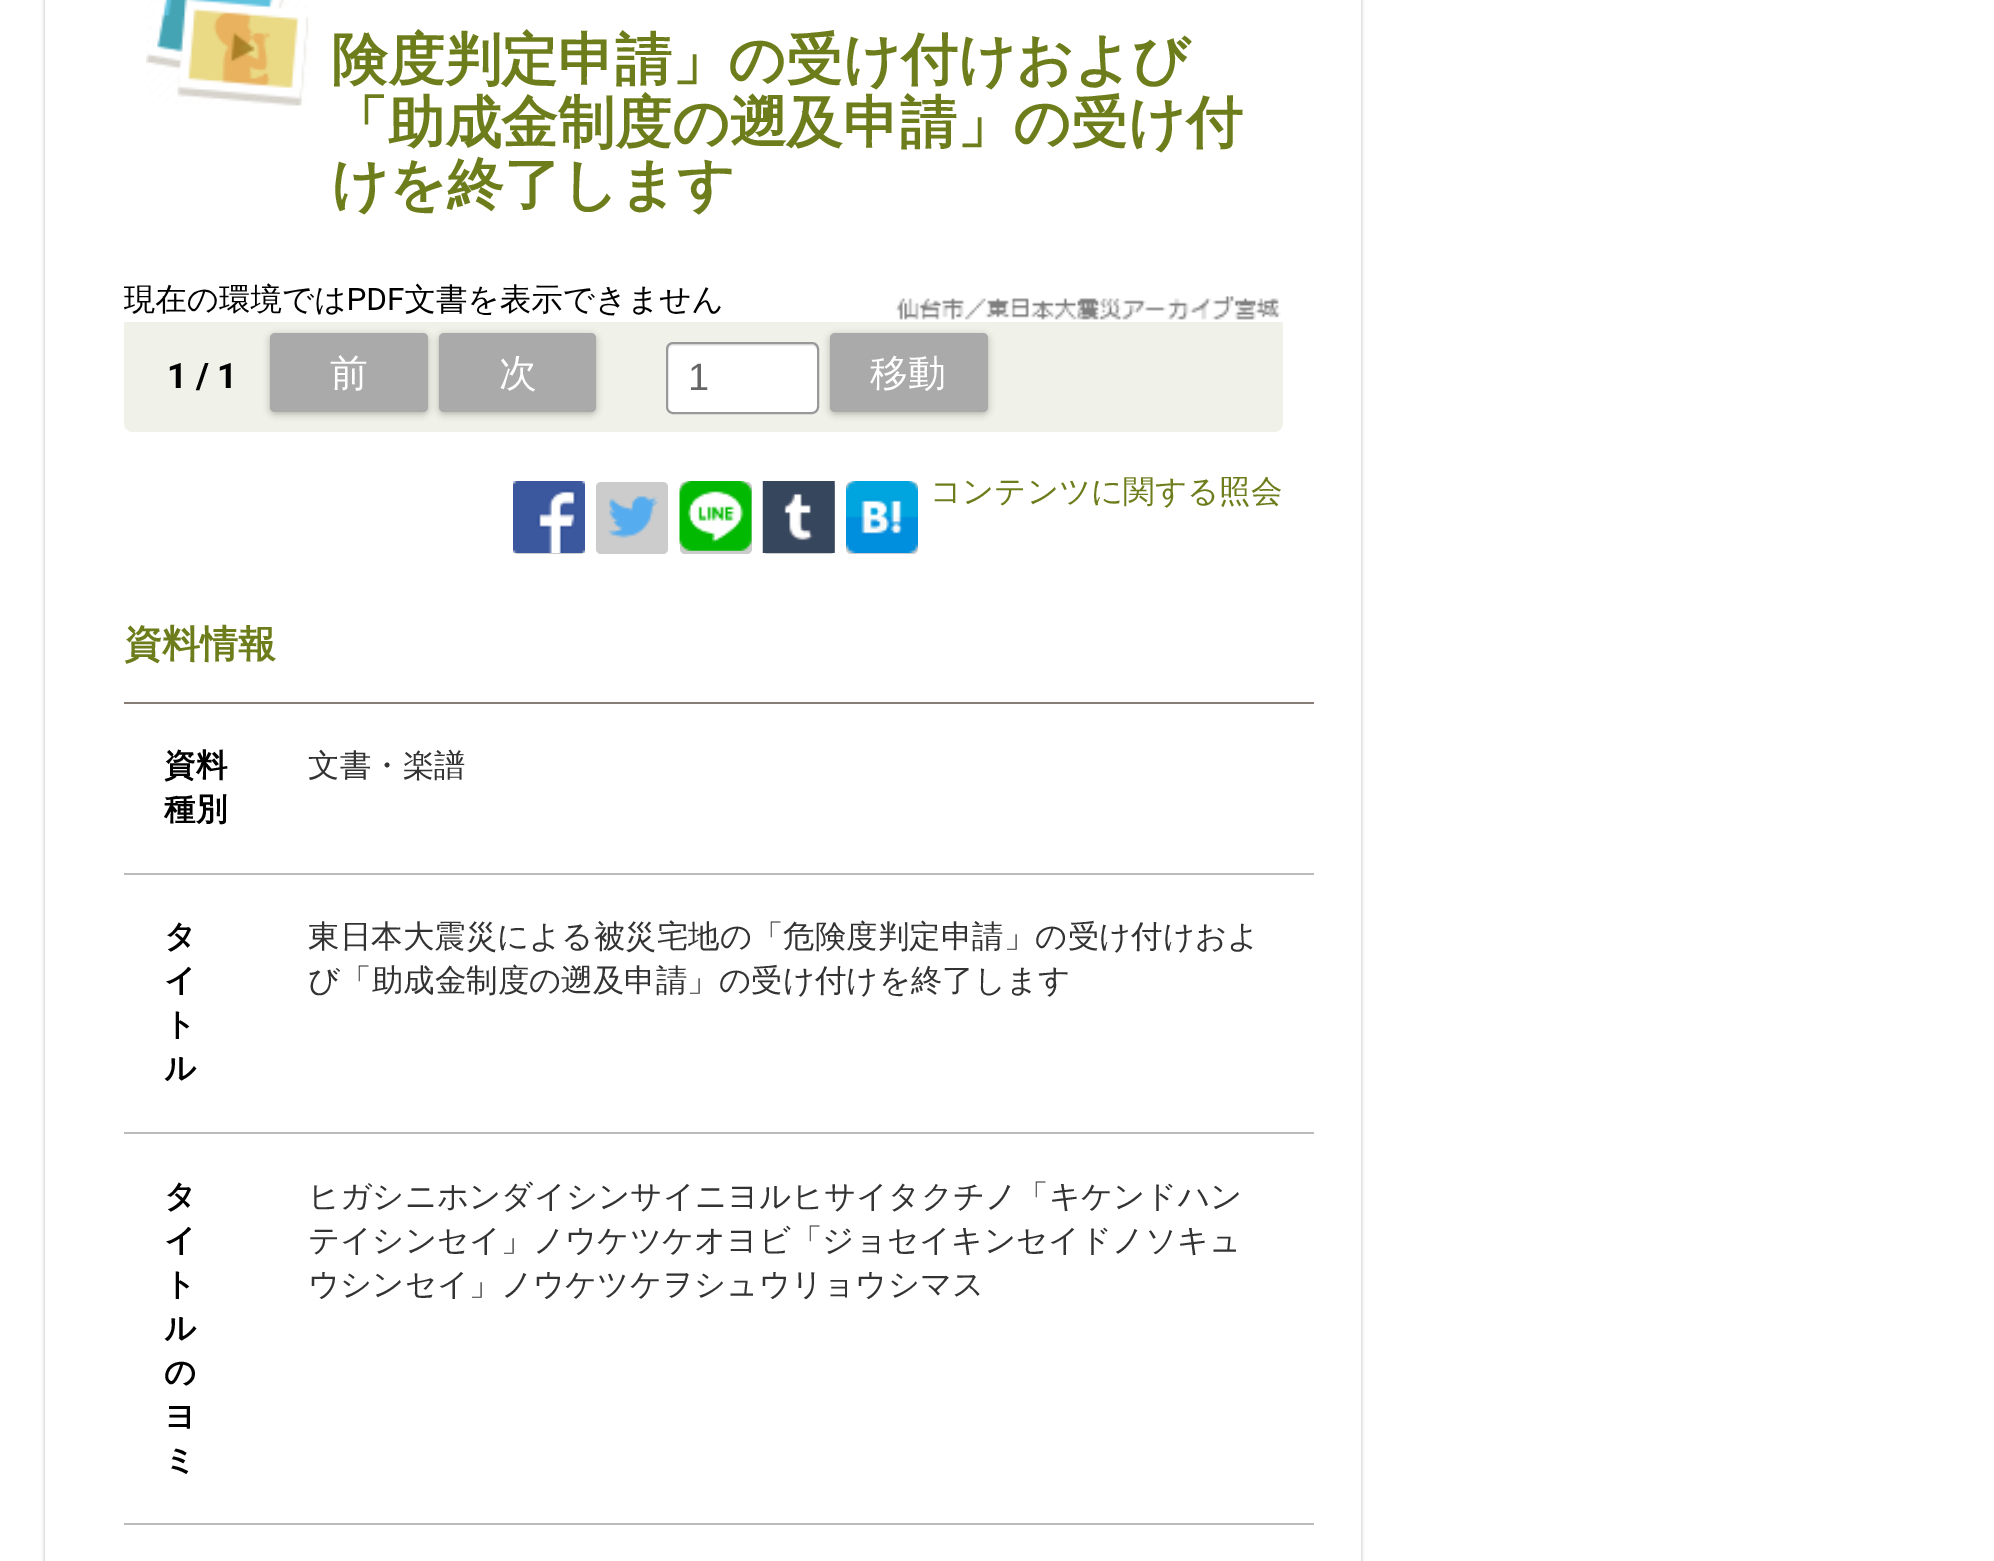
%!PS
<< /PageSize [1994 1561] /PageUsesTransparency true >> setpagedevice
/mt/moveto load def
/li/lineto load def
/ct/curveto load def
/cp/closepath load def
/fl/fill load def
/st/stroke load def
/gs/gsave load def
/gr/grestore load def
/lw/setlinewidth load def
/co { dup -16 bitshift 255 div exch dup -8 bitshift 255 and 255 div exch 255 and 255 div setrgbcolor } def
/fn { [ exch dup neg 0 0 3 -1 roll 0 0 ] selectfont } def
/tx { co fn moveto show } def
/bx { co rectfill } def
/al { dup .setfillconstantalpha .setstrokeconstantalpha } def
/rr { 5 dict begin { /r /h /w /y /x } { exch def } forall
  x r add y moveto x w add y 2 copy h add r arct x w add y h add x 1 index r arct
  x y h add x y r arct x y 2 copy exch w add exch r arct closepath end } def
/sh { 12 dict begin { /a /b /q /h /w /y /x } { exch def } forall gsave /was 0 def
  9 -2 -9 { dup b mul 4 div /e exch def 1 sub .425 mul 2.718 exch exp 1 add a .99 .min exch div /now exch def
    1 1 now sub 1 was sub div sub al /was now def
    w h .min e 2 mul add 0 gt { x e sub y e sub w e 2 mul add h e 2 mul add
      q e add b .6 mul add w h .min 2 div e add .min 0 .max rr fill } if } for grestore end } def
/im { 5 dict begin { /h /w /y /x /name } { exch def } forall
  gsave x y translate w h scale
  w h 8 [w 0 0 h 0 0] name (r) file false 3 colorimage grestore end } def
0 .pushpdf14devicefilter
0 1561 translate 1 -1 scale
4 setmiterlimit
0 0 1994 1561 16#FFFFFF bx
gs
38 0 mt 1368 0 li 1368 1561 li 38 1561 li cp 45 -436 mt 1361 -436 li 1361 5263 li 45 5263 li cp eoclip newpath
16#000000 co
45 -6 1316 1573 0 2 .3 sh
gr
(media/1.raw) 146 0 163 106 im
(media/2.raw) 124 283 597 33 im
(media/3.raw) 895 296 386 24 im
16#F0F2E9 co
124 322 mt 1283 322 li 1283 423 li 1283 428 1279 432 1274 432 ct 133 432 li 128 432 124 428 124 423 ct cp fl
16#000000 co
270 335 158 79 5 3.5 .25 sh
16#AAAAAA co
270 333 158 79 5 rr fl
16#000000 co
439 335 157 79 5 3.5 .25 sh
16#AAAAAA co
439 333 157 79 5 rr fl
16#FFFFFF co
666 342 153 72 7 rr fl
16#ECECEC co
673 346 mt 812 346 li 815 346 817 349 817 351 ct 817 349 li 817 346 815 344 812 344 ct 673 344 li 670 344 668 346 668 349 ct 668 351 li 668 349 670 346 673 346 ct cp fl
16#999999 co
2 lw
667 343 151 70 6 rr st
16#000000 co
830 335 158 79 5 3.5 .25 sh
16#AAAAAA co
830 333 158 79 5 rr fl
16#CCCCCC co
513 482 72 72 5 rr fl
(media/4.raw) 513 481 72 72 im
596 482 72 72 5 rr fl
(media/5.raw) 607 495 51 43 im
680 482 72 72 5 rr fl
(media/6.raw) 679 481 73 70 im
763 482 72 72 5 rr fl
(media/7.raw) 762 481 73 72 im
846 482 72 72 5 rr fl
(media/8.raw) 846 481 72 72 im
124 702 1190 2 16#877D76 bx
124 873 1190 2 16#BBBBBB bx
124 1132 1190 2 16#BBBBBB bx
124 1523 1190 2 16#BBBBBB bx
(険度判定申請」の受け付けおよび) 331 79 /WenQuanYiZenHei-Bold 56.75 16#6D7D1B tx
(「助成金制度の遡及申請」の受け付) 331 142 /WenQuanYiZenHei-Bold 56.75 16#6D7D1B tx
(けを終了します) 331 204 /WenQuanYiZenHei-Bold 56.75 16#6D7D1B tx
(1 / 1) 167 388 /Roboto-Bold 35 16#000000 tx
(前) 330 386 /WenQuanYiZenHei-Medium 38 16#FFFFFF tx
(次) 499 386 /WenQuanYiZenHei-Medium 38 16#FFFFFF tx
(1) 688 390 /LiberationSans-Regular 38 16#666666 tx
(移動) 870 386 /WenQuanYiZenHei-Medium 38 16#FFFFFF tx
(コンテンツに関する照会) 930 502 /WenQuanYiZenHei-Medium 31.5 16#6D7D1B tx
(資料情報) 124 657 /WenQuanYiZenHei-Bold 38 16#6D7D1B tx
(資料) 164 776 /WenQuanYiZenHei-Bold 31.5 16#000000 tx
(種別) 164 820 /WenQuanYiZenHei-Bold 31.5 16#000000 tx
(文書・楽譜) 308 776 /WenQuanYiZenHei-Medium 31.5 16#333333 tx
(タ) 164 947 /WenQuanYiZenHei-Bold 31.5 16#000000 tx
(イ) 164 991 /WenQuanYiZenHei-Bold 31.5 16#000000 tx
(ト) 164 1035 /WenQuanYiZenHei-Bold 31.5 16#000000 tx
(ル) 164 1079 /WenQuanYiZenHei-Bold 31.5 16#000000 tx
(東日本大震災による被災宅地の「危険度判定申請」の受け付けおよ) 308 947 /WenQuanYiZenHei-Medium 31.5 16#333333 tx
(び「助成金制度の遡及申請」の受け付けを終了します) 308 991 /WenQuanYiZenHei-Medium 31.5 16#333333 tx
(タ) 164 1207 /WenQuanYiZenHei-Bold 31.5 16#000000 tx
(イ) 164 1251 /WenQuanYiZenHei-Bold 31.5 16#000000 tx
(ト) 164 1295 /WenQuanYiZenHei-Bold 31.5 16#000000 tx
(ル) 164 1339 /WenQuanYiZenHei-Bold 31.5 16#000000 tx
(の) 164 1383 /WenQuanYiZenHei-Bold 31.5 16#000000 tx
(ヨ) 164 1427 /WenQuanYiZenHei-Bold 31.5 16#000000 tx
(ミ) 164 1471 /WenQuanYiZenHei-Bold 31.5 16#000000 tx
(ヒガシニホンダイシンサイニヨルヒサイタクチノ「キケンドハン) 308 1207 /WenQuanYiZenHei-Medium 31.5 16#333333 tx
(テイシンセイ」ノウケツケオヨビ「ジョセイキンセイドノソキュ) 308 1251 /WenQuanYiZenHei-Medium 31.5 16#333333 tx
(ウシンセイ」ノウケツケヲシュウリョウシマス) 308 1295 /WenQuanYiZenHei-Medium 31.5 16#333333 tx
.poppdf14devicefilter showpage
